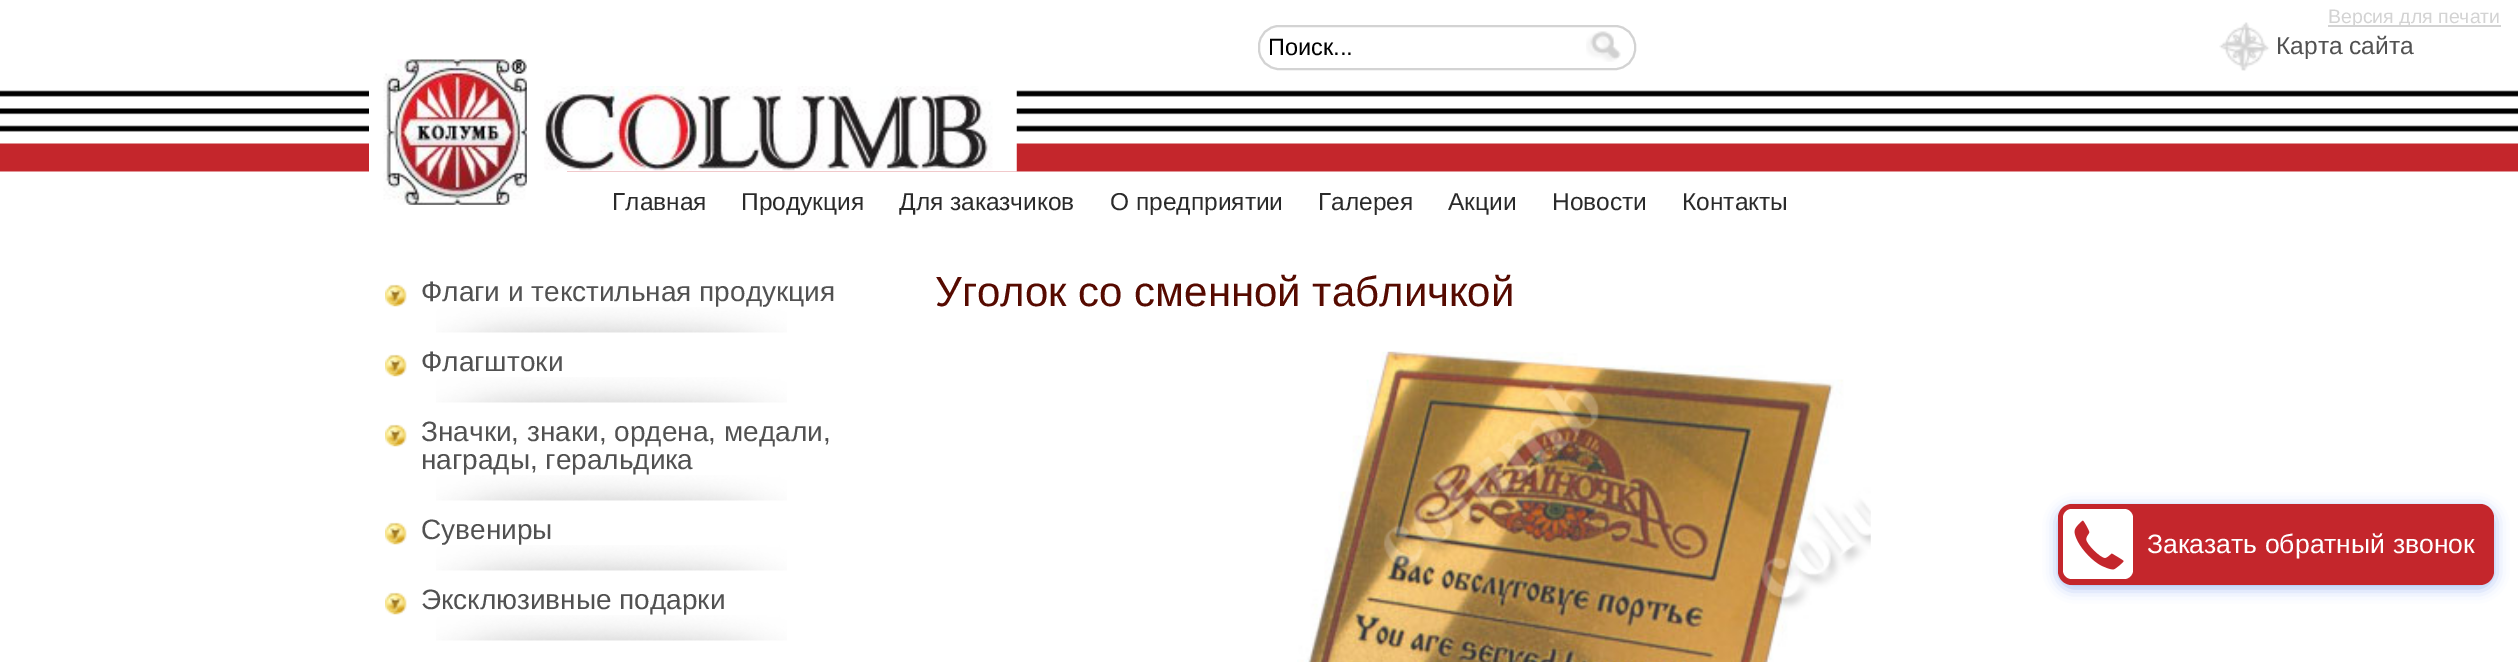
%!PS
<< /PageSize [2518 662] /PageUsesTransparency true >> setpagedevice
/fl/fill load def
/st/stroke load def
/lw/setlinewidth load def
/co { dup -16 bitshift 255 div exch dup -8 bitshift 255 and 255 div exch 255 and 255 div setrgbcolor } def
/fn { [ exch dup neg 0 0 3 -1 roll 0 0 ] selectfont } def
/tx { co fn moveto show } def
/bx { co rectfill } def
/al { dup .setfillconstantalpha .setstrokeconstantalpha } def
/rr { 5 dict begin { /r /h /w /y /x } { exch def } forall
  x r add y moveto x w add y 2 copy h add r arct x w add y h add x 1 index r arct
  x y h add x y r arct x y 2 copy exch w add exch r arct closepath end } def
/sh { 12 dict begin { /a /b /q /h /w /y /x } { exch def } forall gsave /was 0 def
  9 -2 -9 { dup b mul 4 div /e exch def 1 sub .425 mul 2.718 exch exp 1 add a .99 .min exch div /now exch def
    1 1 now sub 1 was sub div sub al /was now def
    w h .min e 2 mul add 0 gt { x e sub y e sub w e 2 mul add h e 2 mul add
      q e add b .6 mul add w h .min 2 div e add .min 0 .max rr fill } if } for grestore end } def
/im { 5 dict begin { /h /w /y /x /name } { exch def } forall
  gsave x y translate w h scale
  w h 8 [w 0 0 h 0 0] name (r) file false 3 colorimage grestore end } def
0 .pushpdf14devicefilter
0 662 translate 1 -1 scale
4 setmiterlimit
0 0 2518 662 16#FFFFFF bx
2328 25 173 2 16#D3D3D3 bx
2 lw
1259 26 376 43 20 rr st
(media/1.raw) 1586 31 35 31 im
(media/5.raw) 0 90 2518 82 im
369 90 198 82 16#FFFFFF bx
(media/2.raw) 383 59 144 146 im
(media/3.raw) 544 86 473 86 im
(media/4.raw) 2219 22 51 49 im
(media/6.raw) 385 284 22 23 im
(media/7.raw) 436 307 351 26 im
(media/6.raw) 385 354 22 23 im
(media/7.raw) 436 377 351 26 im
(media/6.raw) 385 424 22 23 im
(media/7.raw) 436 475 351 26 im
(media/6.raw) 385 522 22 23 im
(media/7.raw) 436 545 351 26 im
(media/6.raw) 385 592 22 23 im
(media/7.raw) 436 615 351 26 im
(media/8.raw) 1297 351 574 311 im
16#457AE6 co
2058 508 436 80 14 7 .5 sh
16#C4262C co
2058 504 436 81 14 rr fl
16#FFFFFF co
2063 509 70 70 9 rr fl
(media/9.raw) 2074 520 50 50 im
(Версия для печати) 2328 23 /LiberationSans-Regular 19.5 16#D3D3D3 tx
(Поиск...) 1268 55 /LiberationSans-Regular 23.5 16#000000 tx
(Главная) 612 210 /LiberationSans-Regular 24.5 16#2A2A2A tx
(Продукция) 741 210 /LiberationSans-Regular 24.5 16#2A2A2A tx
(Для заказчиков) 899 210 /LiberationSans-Regular 24.5 16#2A2A2A tx
(О предприятии) 1110 210 /LiberationSans-Regular 24.5 16#2A2A2A tx
(Галерея) 1318 210 /LiberationSans-Regular 24.5 16#2A2A2A tx
(Акции) 1448 210 /LiberationSans-Regular 24.5 16#2A2A2A tx
(Новости) 1552 210 /LiberationSans-Regular 24.5 16#2A2A2A tx
(Контакты) 1682 210 /LiberationSans-Regular 24.5 16#2A2A2A tx
(Карта сайта) 2276 54 /LiberationSans-Regular 24.5 16#515151 tx
(Флаги и текстильная продукция) 421 301 /LiberationSans-Regular 28 16#515151 tx
(Флагштоки) 421 371 /LiberationSans-Regular 28 16#515151 tx
(Значки, знаки, ордена, медали,) 421 441 /LiberationSans-Regular 28 16#515151 tx
(награды, геральдика) 421 469 /LiberationSans-Regular 28 16#515151 tx
(Сувениры) 421 539 /LiberationSans-Regular 28 16#515151 tx
(Эксклюзивные подарки) 421 609 /LiberationSans-Regular 28 16#515151 tx
(Уголок со сменной табличкой) 935 306 /LiberationSans-Regular 42 16#560A00 tx
(Заказать обратный звонок) 2147 553 /LiberationSans-Regular 26.6 16#FFFFFF tx
.poppdf14devicefilter showpage
